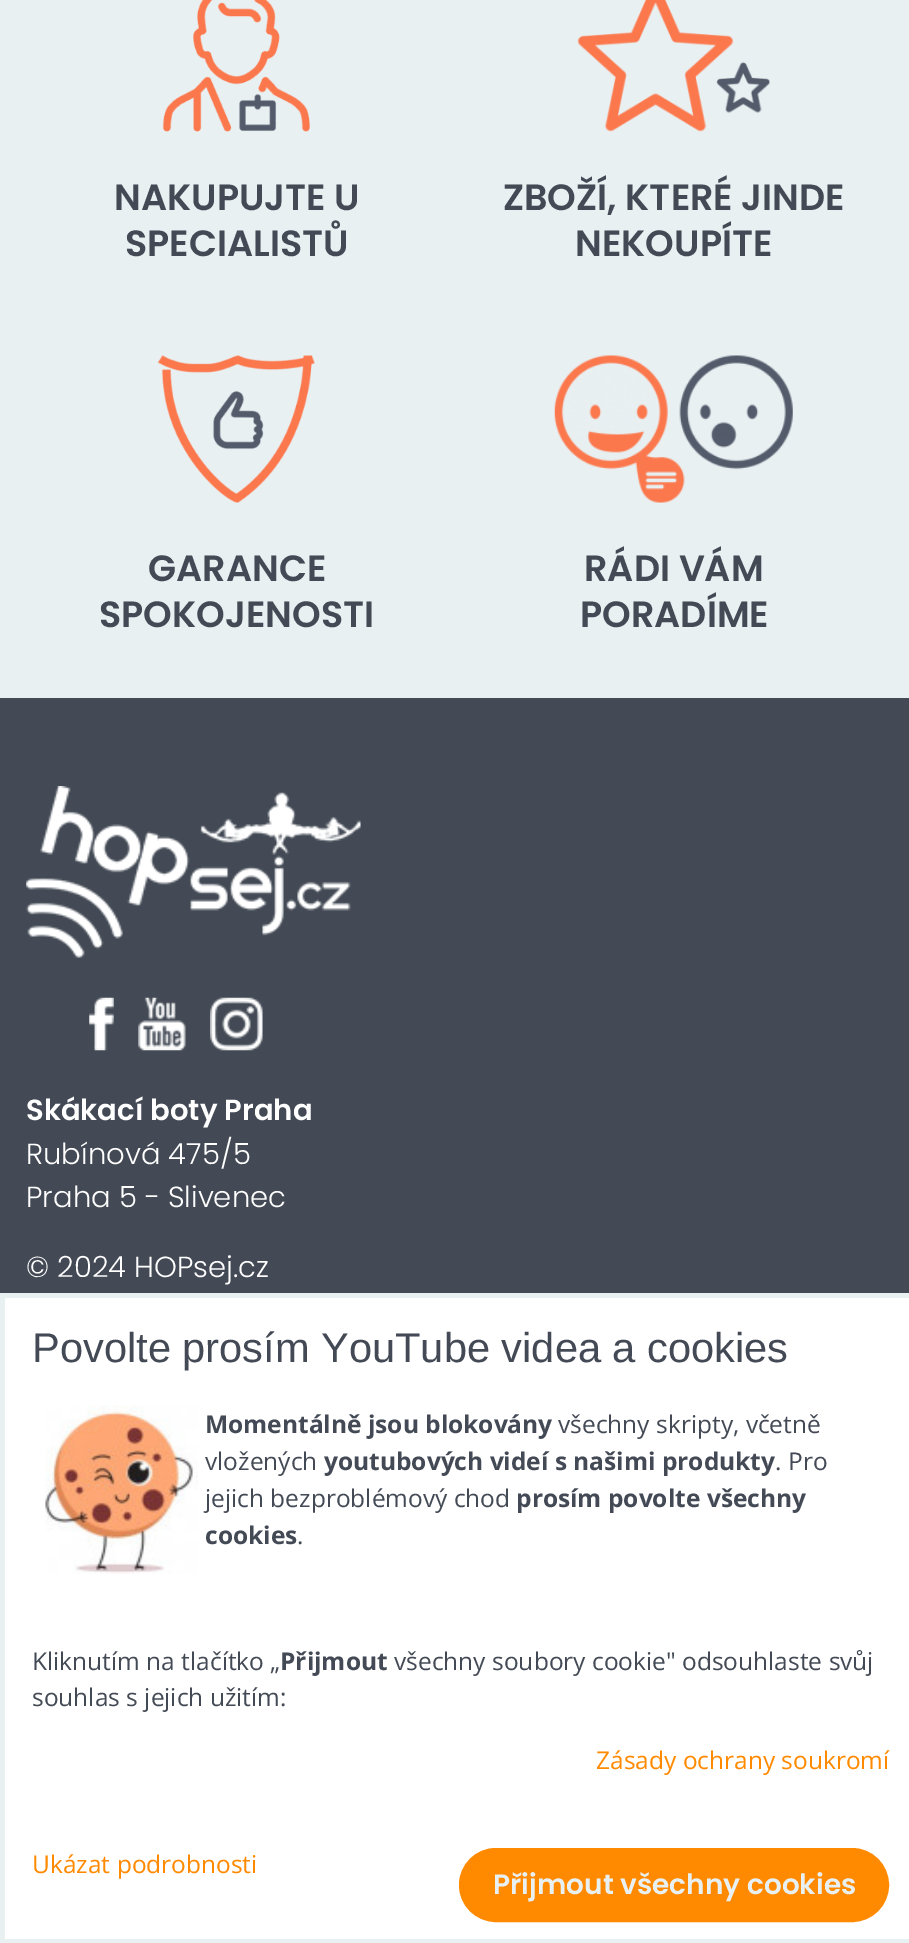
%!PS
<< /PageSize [909 1943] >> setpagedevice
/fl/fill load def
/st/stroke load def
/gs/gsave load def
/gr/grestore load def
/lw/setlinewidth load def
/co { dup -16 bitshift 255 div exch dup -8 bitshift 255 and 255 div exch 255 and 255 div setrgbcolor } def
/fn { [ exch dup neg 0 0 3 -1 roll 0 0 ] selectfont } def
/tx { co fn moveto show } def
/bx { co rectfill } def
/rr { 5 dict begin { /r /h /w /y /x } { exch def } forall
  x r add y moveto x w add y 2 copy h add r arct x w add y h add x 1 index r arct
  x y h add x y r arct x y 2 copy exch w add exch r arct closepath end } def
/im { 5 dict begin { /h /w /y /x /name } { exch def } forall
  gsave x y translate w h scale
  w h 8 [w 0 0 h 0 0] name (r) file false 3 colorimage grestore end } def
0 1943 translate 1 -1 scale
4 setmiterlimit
0 0 909 1943 16#E9F0F2 bx
(media/1.raw) 162 0 148 132 im
(media/2.raw) 577 0 193 132 im
(media/3.raw) 157 355 158 148 im
(media/4.raw) 554 355 239 148 im
0 698 909 595 16#434A55 bx
(media/5.raw) 26 786 335 172 im
(media/6.raw) 89 997 25 54 im
(media/7.raw) 138 997 48 54 im
(media/8.raw) 210 997 53 54 im
5 1298 904 641 16#FFFFFF bx
(media/9.raw) 45 1405 153 169 im
16#FF8A00 co
461 1850 426 70 35 rr gs fl gr
4 lw
st
(NAKUPUJTE U) 114 210 /Poppins-SemiBold 36.5 16#434A55 tx
(SPECIALISTŮ) 125 256 /Poppins-SemiBold 36.5 16#434A55 tx
(ZBOŽÍ, KTERÉ JINDE) 503 210 /Poppins-SemiBold 36.5 16#434A55 tx
(NEKOUPÍTE) 575 256 /Poppins-SemiBold 36.5 16#434A55 tx
(GARANCE) 148 581 /Poppins-SemiBold 36.5 16#434A55 tx
(SPOKOJENOSTI) 99 627 /Poppins-SemiBold 36.5 16#434A55 tx
(RÁDI VÁM) 584 581 /Poppins-SemiBold 36.5 16#434A55 tx
(PORADÍME) 580 627 /Poppins-SemiBold 36.5 16#434A55 tx
(Skákací boty Praha) 26 1120 /Poppins-SemiBold 29.1 16#FFFFFF tx
(Rubínová 475/5) 26 1164 /Poppins-Light 29.1 16#FFFFFF tx
(Praha 5 - Slivenec) 26 1207 /Poppins-Light 29.1 16#FFFFFF tx
(© 2024 HOPsej.cz) 26 1277 /Poppins-Light 29.1 16#FFFFFF tx
(Povolte prosím YouTube videa a cookies) 32 1362 /LiberationSans-Regular 41.6 16#434A55 tx
(Momentálně jsou blokovány) 205 1433 /OpenSans-Bold 24.5 16#434A55 tx
(všechny skripty, včetně) 558 1433 /OpenSans-Regular 24.5 16#434A55 tx
(vložených) 205 1470 /OpenSans-Regular 24.5 16#434A55 tx
(youtubových videí s našimi produkty) 324 1470 /OpenSans-Bold 24.5 16#434A55 tx
(. Pro) 775 1470 /OpenSans-Regular 24.5 16#434A55 tx
(jejich bezproblémový chod) 205 1507 /OpenSans-Regular 24.5 16#434A55 tx
(prosím povolte všechny) 516 1507 /OpenSans-Bold 24.5 16#434A55 tx
(cookies) 205 1544 /OpenSans-Bold 24.5 16#434A55 tx
(.) 297 1544 /OpenSans-Regular 24.5 16#434A55 tx
(Kliknutím na tlačítko „) 32 1670 /OpenSans-Regular 24.5 16#434A55 tx
(Přijmout) 280 1670 /OpenSans-Bold 24.5 16#434A55 tx
(všechny soubory cookie" odsouhlaste svůj) 394 1670 /OpenSans-Regular 24.5 16#434A55 tx
(souhlas s jejich užitím:) 32 1706 /OpenSans-Regular 24.5 16#434A55 tx
(Zásady ochrany soukromí) 596 1769 /OpenSans-Regular 24.5 16#FF8A00 tx
(Ukázat podrobnosti) 32 1873 /OpenSans-Regular 24.5 16#FF8A00 tx
(Přijmout všechny cookies) 493 1894 /Poppins-SemiBold 28 16#E9F0F2 tx
showpage
